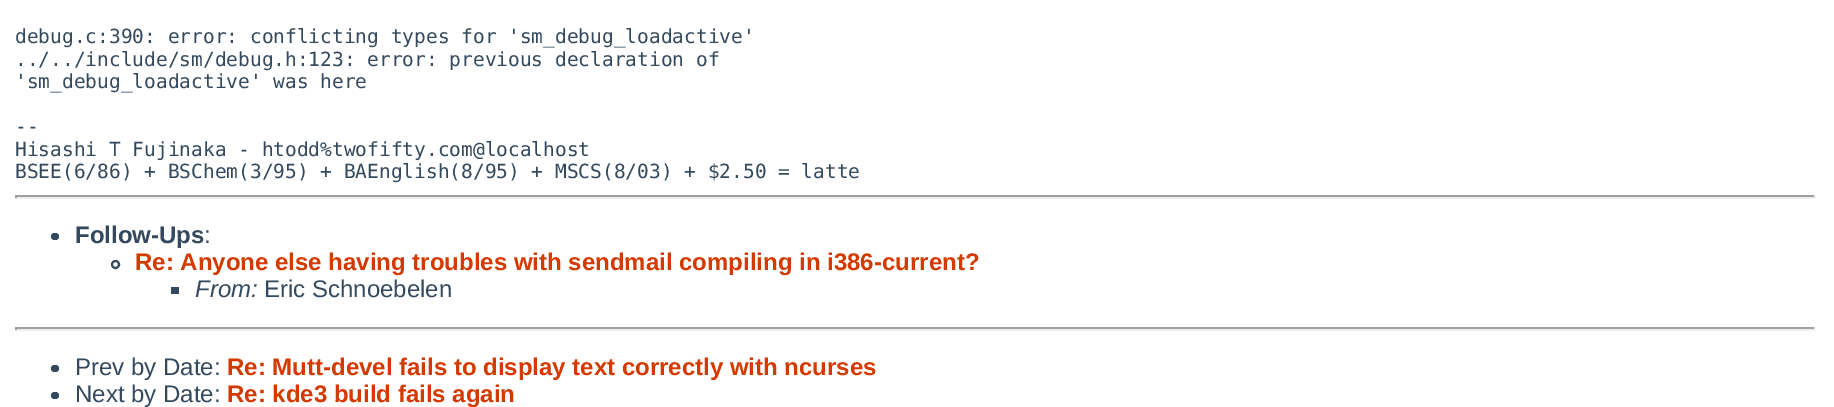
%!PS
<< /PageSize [1834 407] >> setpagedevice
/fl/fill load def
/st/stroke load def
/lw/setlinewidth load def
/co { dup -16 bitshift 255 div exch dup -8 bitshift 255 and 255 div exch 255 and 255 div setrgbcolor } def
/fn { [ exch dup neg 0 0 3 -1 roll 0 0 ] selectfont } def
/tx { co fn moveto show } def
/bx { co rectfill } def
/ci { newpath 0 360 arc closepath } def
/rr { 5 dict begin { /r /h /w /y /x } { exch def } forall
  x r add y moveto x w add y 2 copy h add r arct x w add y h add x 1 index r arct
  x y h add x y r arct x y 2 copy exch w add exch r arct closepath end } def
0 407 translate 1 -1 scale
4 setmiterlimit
0 0 1834 407 16#FFFFFF bx
15 195 1800 2 16#9F9F9F bx
1814 195 2 3 16#EEEEEE bx
15 197 1800 2 16#EEEEEE bx
15 195 2 3 16#9F9F9F bx
16#34495E co
51 233 8 7 3.5 rr fl
2 lw
115.5 264.5 3.5 ci st
171 287 8 7 16#34495E bx
15 327 1800 2 16#9F9F9F bx
1814 327 2 3 16#EEEEEE bx
15 329 1800 2 16#EEEEEE bx
15 327 2 3 16#9F9F9F bx
16#34495E co
51 365 8 7 3.5 rr fl
51 392 8 7 3.5 rr fl
(debug.c:390: error: conflicting types for 'sm_debug_loadactive') 15 43 /DejaVuSansMono-Regular 19.5 16#34495E tx
(../../include/sm/debug.h:123: error: previous declaration of) 15 66 /DejaVuSansMono-Regular 19.5 16#34495E tx
('sm_debug_loadactive' was here) 15 88 /DejaVuSansMono-Regular 19.5 16#34495E tx
(--) 15 133 /DejaVuSansMono-Regular 19.5 16#34495E tx
(Hisashi T Fujinaka - htodd%twofifty.com@localhost) 15 156 /DejaVuSansMono-Regular 19.5 16#34495E tx
(BSEE\(6/86\) + BSChem\(3/95\) + BAEnglish\(8/95\) + MSCS\(8/03\) + $2.50 = latte) 15 178 /DejaVuSansMono-Regular 19.5 16#34495E tx
(Follow-Ups) 75 243 /LiberationSans-Bold 24 16#34495E tx
(:) 204 243 /LiberationSans-Regular 24 16#34495E tx
(Re: Anyone else having troubles with sendmail compiling in i386-current?) 135 270 /LiberationSans-Bold 24 16#D43900 tx
(From:) 195 297 /LiberationSans-Italic 24 16#34495E tx
(Eric Schnoebelen) 264 297 /LiberationSans-Regular 24 16#34495E tx
(Prev by Date:) 75 375 /LiberationSans-Regular 24 16#34495E tx
(Re: Mutt-devel fails to display text correctly with ncurses) 227 375 /LiberationSans-Bold 24 16#D43900 tx
(Next by Date:) 75 402 /LiberationSans-Regular 24 16#34495E tx
(Re: kde3 build fails again) 227 402 /LiberationSans-Bold 24 16#D43900 tx
showpage
